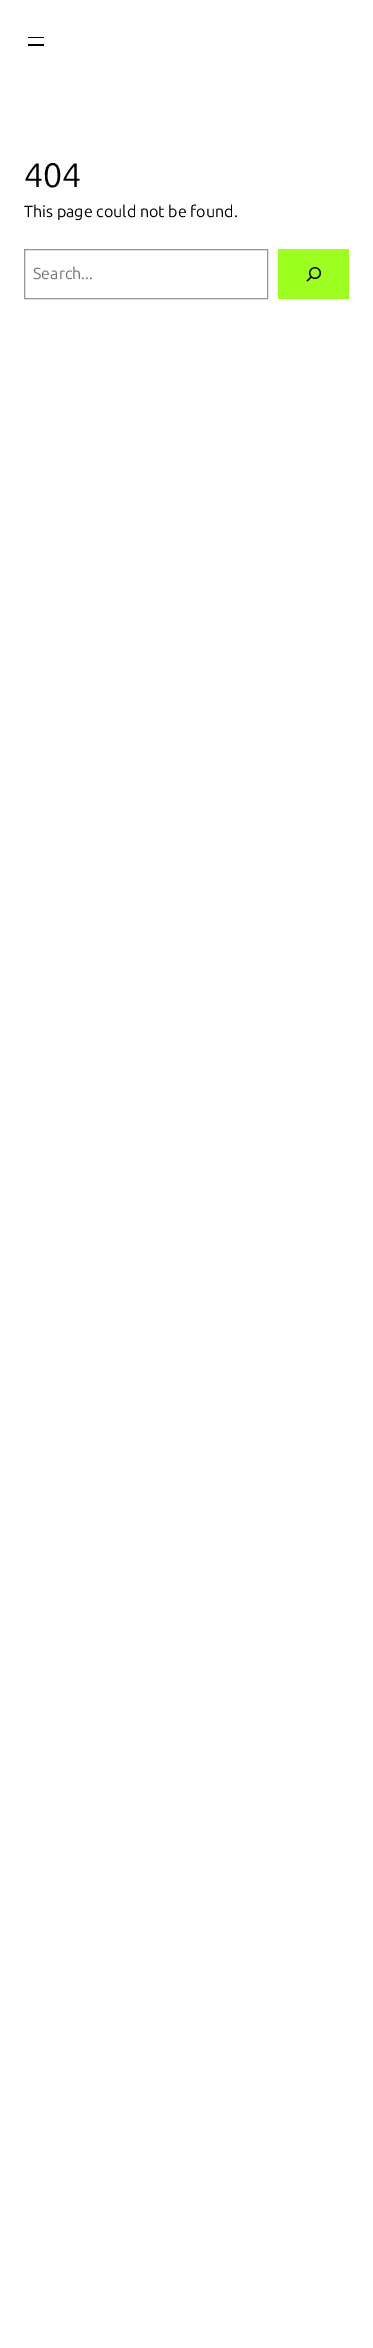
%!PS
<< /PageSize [373 2348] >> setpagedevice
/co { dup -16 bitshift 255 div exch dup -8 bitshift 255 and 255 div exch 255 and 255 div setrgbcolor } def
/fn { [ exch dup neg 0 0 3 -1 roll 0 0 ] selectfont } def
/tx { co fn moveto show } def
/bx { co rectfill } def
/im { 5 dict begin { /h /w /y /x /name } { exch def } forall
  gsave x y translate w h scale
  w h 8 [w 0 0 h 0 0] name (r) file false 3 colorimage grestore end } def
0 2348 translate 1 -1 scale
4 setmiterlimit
0 0 373 2348 16#FFFFFF bx
28 37 16 1 16#000000 bx
28 44 16 2 16#000000 bx
16#949494 co
24.5 249.5 243 49 rectstroke
278 249 71 50 16#9DFF20 bx
(media/1.raw) 306 267 16 15 im
(404) 24 187 /Ubuntu-Regular 34 16#000000 tx
(This page could not be found.) 24 217 /Ubuntu-Regular 16.1 16#000000 tx
(Search...) 33 279 /Ubuntu-Regular 16.1 16#757575 tx
showpage
